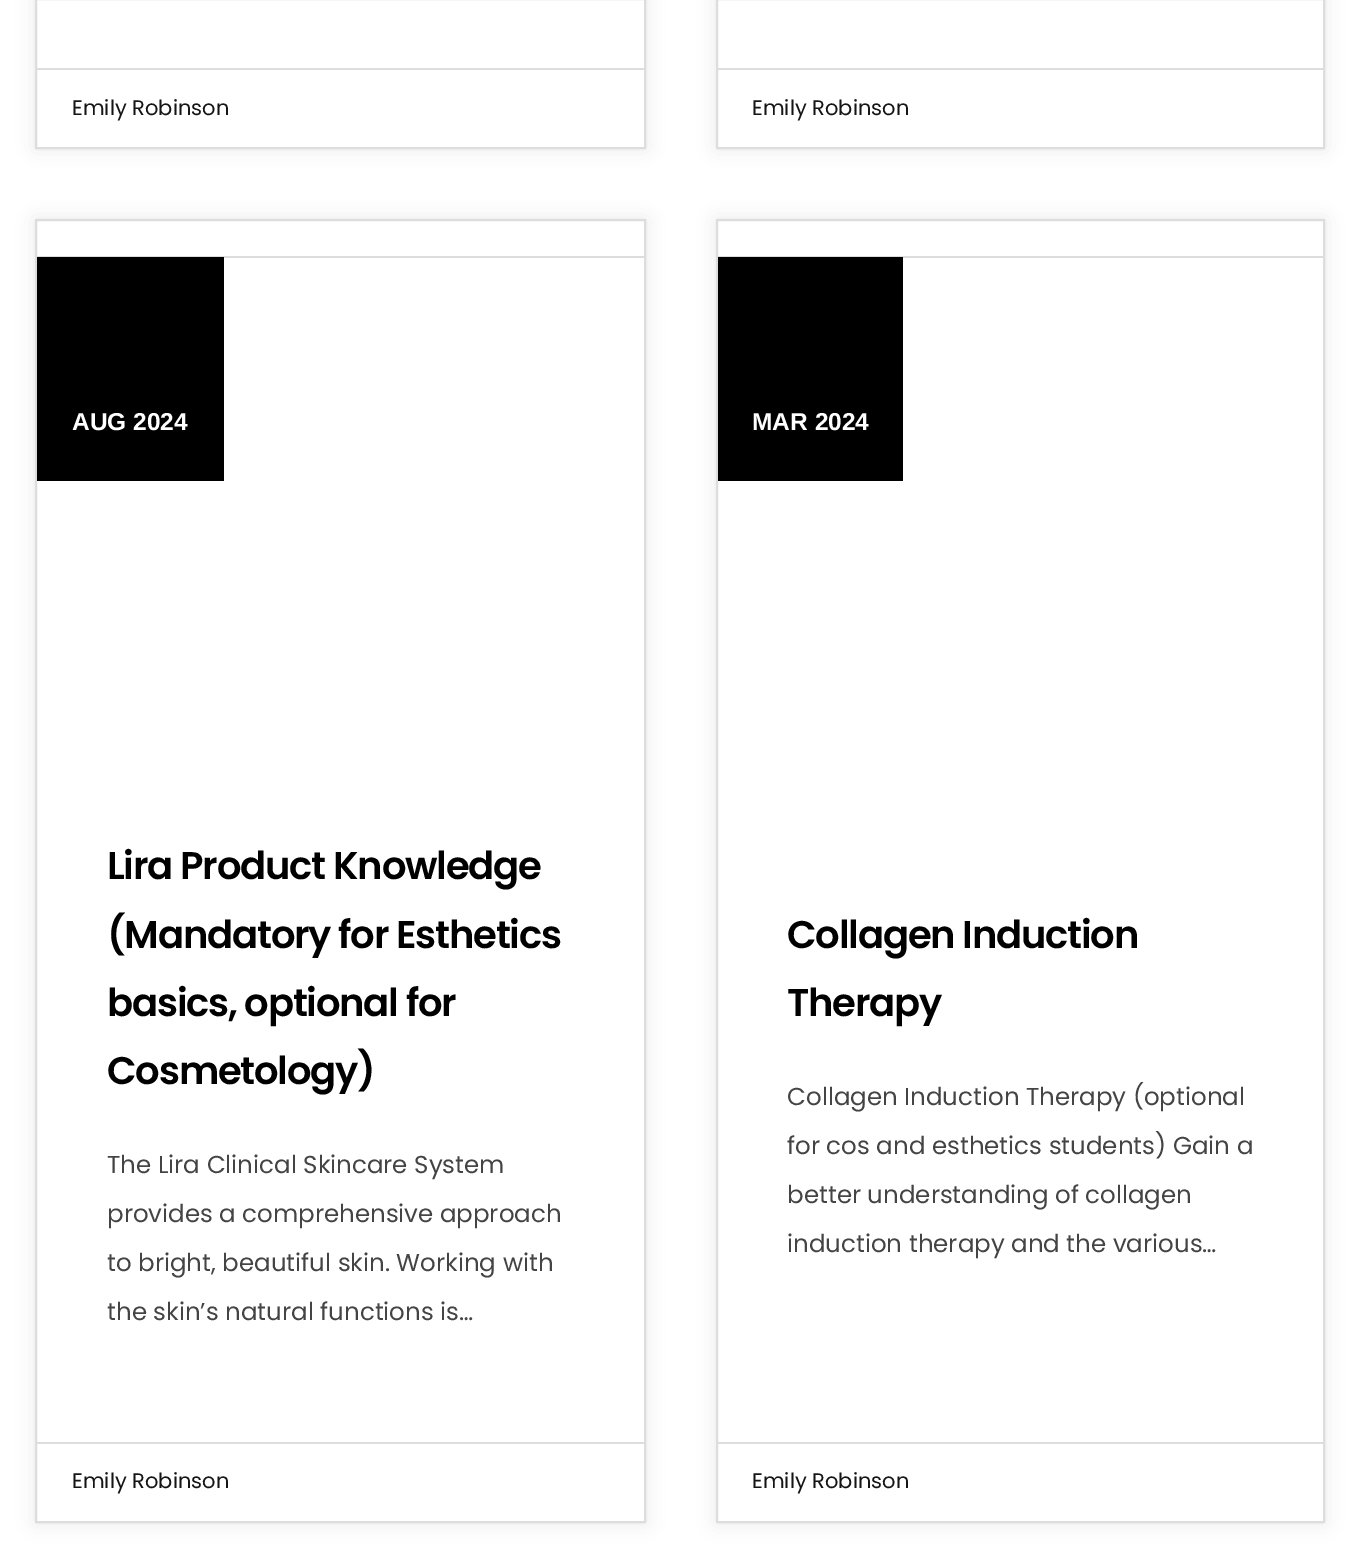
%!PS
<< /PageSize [1359 1548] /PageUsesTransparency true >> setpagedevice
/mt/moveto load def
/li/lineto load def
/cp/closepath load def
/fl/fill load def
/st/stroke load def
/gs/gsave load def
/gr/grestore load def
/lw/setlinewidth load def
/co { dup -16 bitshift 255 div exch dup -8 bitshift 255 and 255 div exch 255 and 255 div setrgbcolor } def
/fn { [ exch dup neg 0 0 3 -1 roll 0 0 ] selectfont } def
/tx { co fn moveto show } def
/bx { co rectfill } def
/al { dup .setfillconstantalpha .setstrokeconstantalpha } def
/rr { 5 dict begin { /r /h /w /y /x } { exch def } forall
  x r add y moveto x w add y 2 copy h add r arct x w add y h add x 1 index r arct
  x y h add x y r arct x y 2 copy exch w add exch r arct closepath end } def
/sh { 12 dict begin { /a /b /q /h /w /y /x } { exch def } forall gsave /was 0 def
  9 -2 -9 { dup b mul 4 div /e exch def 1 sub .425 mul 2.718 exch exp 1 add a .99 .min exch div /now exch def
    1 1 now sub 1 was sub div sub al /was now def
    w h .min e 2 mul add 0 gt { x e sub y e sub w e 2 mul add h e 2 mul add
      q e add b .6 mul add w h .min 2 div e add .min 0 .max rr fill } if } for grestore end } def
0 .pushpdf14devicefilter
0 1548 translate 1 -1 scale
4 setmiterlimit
0 0 1359 1548 16#FFFFFF bx
16#000000 co
35 -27 611 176 0 9 .09 sh
16#FFFFFF co
36 -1 mt 645 -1 li 645 148 li 36 148 li cp gs fl gr
16#DDDDDD co
2 lw
st
37 68 607 2 16#DDDDDD bx
16#000000 co
716 -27 609 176 0 9 .09 sh
16#FFFFFF co
717 -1 mt 1324 -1 li 1324 148 li 717 148 li cp gs fl gr
16#DDDDDD co
st
718 68 605 2 16#DDDDDD bx
16#000000 co
35 219 611 1304 0 9 .09 sh
16#FFFFFF co
36 220 mt 645 220 li 645 1522 li 36 1522 li cp gs fl gr
16#DDDDDD co
st
37 256 607 2 16#DDDDDD bx
37 257 187 224 16#000000 bx
37 1442 607 2 16#DDDDDD bx
16#000000 co
716 219 609 1304 0 9 .09 sh
16#FFFFFF co
717 220 mt 1324 220 li 1324 1522 li 717 1522 li cp gs fl gr
16#DDDDDD co
st
718 256 605 2 16#DDDDDD bx
718 257 185 224 16#000000 bx
718 1442 605 2 16#DDDDDD bx
(Emily Robinson) 72 115 /Poppins-Regular 21 16#151515 tx
(Emily Robinson) 752 115 /Poppins-Regular 21 16#151515 tx
(AUG 2024) 72 430 /LiberationSans-Bold 24.5 16#FFFFFF tx
/Poppins-SemiBold 38.5 fn
16#000000 co
107 879 mt -1.2 0 (Lira Product Knowledge) ashow
107 948 mt -1.2 0 (\(Mandatory for Esthetics) ashow
107 1016 mt -1.2 0 (basics, optional for) ashow
107 1084 mt -1.2 0 (Cosmetology\)) ashow
(The Lira Clinical Skincare System) 107 1173 /Poppins-Regular 24.5 16#444444 tx
(provides a comprehensive approach) 107 1222 /Poppins-Regular 24.5 16#444444 tx
(to bright, beautiful skin. Working with) 107 1271 /Poppins-Regular 24.5 16#444444 tx
(the skin’s natural functions is…) 107 1320 /Poppins-Regular 24.5 16#444444 tx
(Emily Robinson) 72 1488 /Poppins-Regular 21 16#151515 tx
(MAR 2024) 752 430 /LiberationSans-Bold 24.5 16#FFFFFF tx
/Poppins-SemiBold 38.5 fn
16#000000 co
787 948 mt -1.2 0 (Collagen Induction) ashow
gs
788 901 465 137 rectclip
787 1016 mt -1.2 0 (Therapy) ashow
gr
(Collagen Induction Therapy \(optional) 787 1105 /Poppins-Regular 24.5 16#444444 tx
(for cos and esthetics students\) Gain a) 787 1154 /Poppins-Regular 24.5 16#444444 tx
(better understanding of collagen) 787 1203 /Poppins-Regular 24.5 16#444444 tx
(induction therapy and the various…) 787 1252 /Poppins-Regular 24.5 16#444444 tx
(Emily Robinson) 752 1488 /Poppins-Regular 21 16#151515 tx
.poppdf14devicefilter showpage
